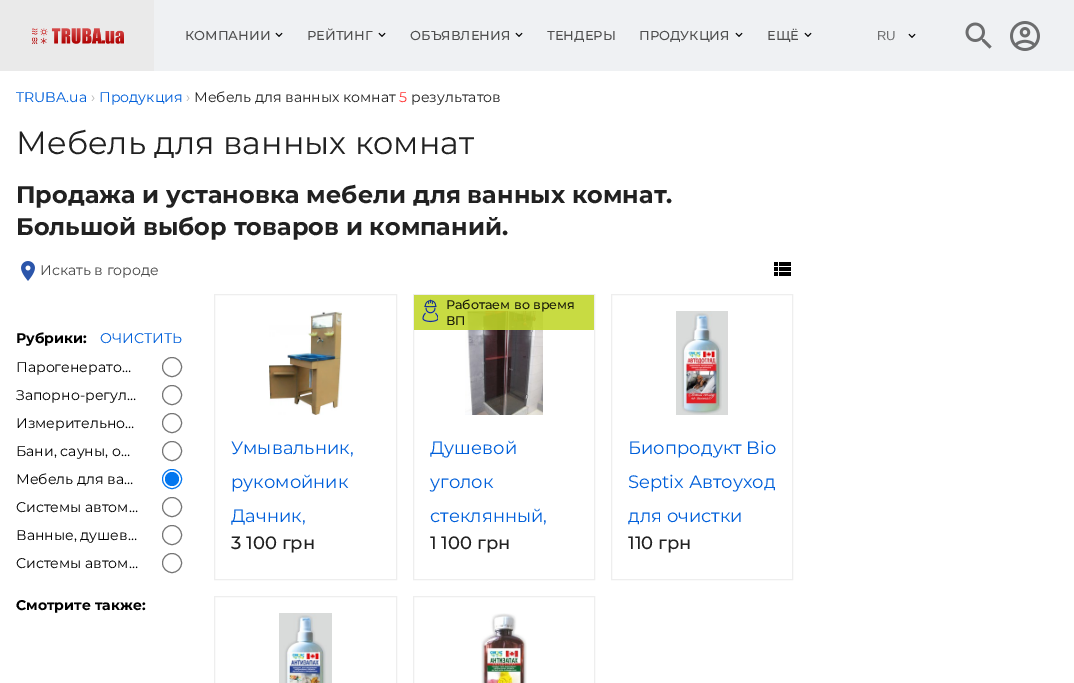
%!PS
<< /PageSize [1074 683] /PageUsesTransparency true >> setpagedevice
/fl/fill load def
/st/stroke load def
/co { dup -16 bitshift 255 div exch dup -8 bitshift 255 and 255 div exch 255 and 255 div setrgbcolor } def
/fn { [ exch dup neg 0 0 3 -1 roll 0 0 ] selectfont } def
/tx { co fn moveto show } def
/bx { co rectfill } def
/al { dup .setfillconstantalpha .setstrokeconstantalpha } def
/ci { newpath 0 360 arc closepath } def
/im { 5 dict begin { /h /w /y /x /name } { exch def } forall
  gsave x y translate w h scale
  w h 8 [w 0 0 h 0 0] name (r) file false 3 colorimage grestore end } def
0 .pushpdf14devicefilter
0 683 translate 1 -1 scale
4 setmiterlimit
0 0 1074 683 16#FFFFFF bx
154 0 920 71 16#EFF1F3 bx
0 0 154 71 16#EAEAEA bx
(media/1.raw) 32 28 92 16 im
(media/2.raw) 275 32 8 5 im
(media/2.raw) 378 32 8 5 im
(media/2.raw) 515 32 8 5 im
(media/2.raw) 735 32 8 5 im
(media/2.raw) 804 32 8 5 im
(media/2.raw) 908 33 8 5 im
(media/3.raw) 965 22 27 27 im
(media/4.raw) 1010 21 30 30 im
(media/5.raw) 21 261 14 20 im
16#757575 co
172 367 9.5 ci st
172 395 9.5 ci st
172 423 9.5 ci st
172 451 9.5 ci st
16#0276EF co
172 479 9.5 ci st
172 479 7 ci fl
16#757575 co
172 507 9.5 ci st
172 535 9.5 ci st
172 563 9.5 ci st
(media/6.raw) 774 262 17 14 im
16#EEEEEE co
214.5 294.5 182 285 rectstroke
(media/7.raw) 269 311 73 104 im
413.5 294.5 181 285 rectstroke
(media/9.raw) 465 311 78 104 im
0.88 al
414 295 180 35 16#C0D628 bx
1 al
(media/8.raw) 422 299 16 24 im
16#EEEEEE co
611.5 294.5 181 285 rectstroke
(media/10.raw) 676 311 52 104 im
214.5 596.5 182 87 rectstroke
(media/11.raw) 279 613 53 70 im
413.5 596.5 181 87 rectstroke
(media/12.raw) 481 613 46 70 im
(КОМПАНИИ) 185 40 /Montserrat-Medium 13 16#4E4E4E tx
(РЕЙТИНГ) 307 40 /Montserrat-Medium 13 16#4E4E4E tx
(ОБЪЯВЛЕНИЯ) 410 40 /Montserrat-Medium 13 16#4E4E4E tx
(ТЕНДЕРЫ) 547 40 /Montserrat-Medium 13 16#4E4E4E tx
(ПРОДУКЦИЯ) 639 40 /Montserrat-Medium 13 16#4E4E4E tx
(ЕЩЁ) 767 40 /Montserrat-Medium 13 16#4E4E4E tx
(RU) 877 40 /LiberationSans-Regular 13 16#6E6F70 tx
(TRUBA.ua) 16 102 /Montserrat-Regular 14.1 16#005FDA tx
(›) 91 102 /Montserrat-Regular 14.1 16#B3B3B3 tx
(Продукция) 99 102 /Montserrat-Regular 14.1 16#005FDA tx
(›) 186 102 /Montserrat-Regular 14.1 16#B3B3B3 tx
(Мебель для ванных комнат) 194 102 /Montserrat-Regular 14.1 16#212121 tx
(5) 399 102 /Montserrat-Regular 14.1 16#FF3333 tx
(результатов) 411 102 /Montserrat-Regular 14.1 16#212121 tx
(Мебель для ванных комнат) 16 154 /Montserrat-Regular 32 16#212121 tx
(Продажа и установка мебели для ванных комнат.) 16 203 /Montserrat-Bold 24 16#212121 tx
(Большой выбор товаров и компаний.) 16 235 /Montserrat-Bold 24 16#212121 tx
(Искать в городе) 40 275 /Montserrat-Regular 14.1 16#474747 tx
(Рубрики:) 16 343 /Montserrat-Bold 14.1 16#000000 tx
(ОЧИСТИТЬ) 100 343 /Montserrat-Regular 14.1 16#005FDA tx
(Парогенерато…) 16 372 /Montserrat-Regular 14.1 16#000000 tx
(Запорно-регул…) 16 400 /Montserrat-Regular 14.1 16#000000 tx
(Измерительно…) 16 428 /Montserrat-Regular 14.1 16#000000 tx
(Бани, сауны, о…) 16 456 /Montserrat-Regular 14.1 16#000000 tx
(Мебель для ва…) 16 484 /Montserrat-Regular 14.1 16#000000 tx
(Системы автом…) 16 512 /Montserrat-Regular 14.1 16#000000 tx
(Ванные, душев…) 16 540 /Montserrat-Regular 14.1 16#000000 tx
(Системы автом…) 16 568 /Montserrat-Regular 14.1 16#000000 tx
(Смотрите также:) 16 610 /Montserrat-Bold 14.1 16#000000 tx
(Умывальник,) 231 454 /Montserrat-Regular 18 16#005FDA tx
(рукомойник) 231 488 /Montserrat-Regular 18 16#005FDA tx
(Дачник,) 231 522 /Montserrat-Regular 18 16#005FDA tx
(3 100 грн) 231 549 /Montserrat-Medium 18 16#212121 tx
(Работаем во время) 446 309 /Montserrat-Medium 12.6 16#1A1C09 tx
(ВП) 446 325 /Montserrat-Medium 12.6 16#1A1C09 tx
(Душевой) 430 454 /Montserrat-Regular 18 16#005FDA tx
(уголок) 430 488 /Montserrat-Regular 18 16#005FDA tx
(стеклянный,) 430 522 /Montserrat-Regular 18 16#005FDA tx
(1 100 грн) 430 549 /Montserrat-Medium 18 16#212121 tx
(Биопродукт Bio) 628 454 /Montserrat-Regular 18 16#005FDA tx
(Septix Автоуход) 628 488 /Montserrat-Regular 18 16#005FDA tx
(для очистки) 628 522 /Montserrat-Regular 18 16#005FDA tx
(110 грн) 628 549 /Montserrat-Medium 18 16#212121 tx
.poppdf14devicefilter showpage
